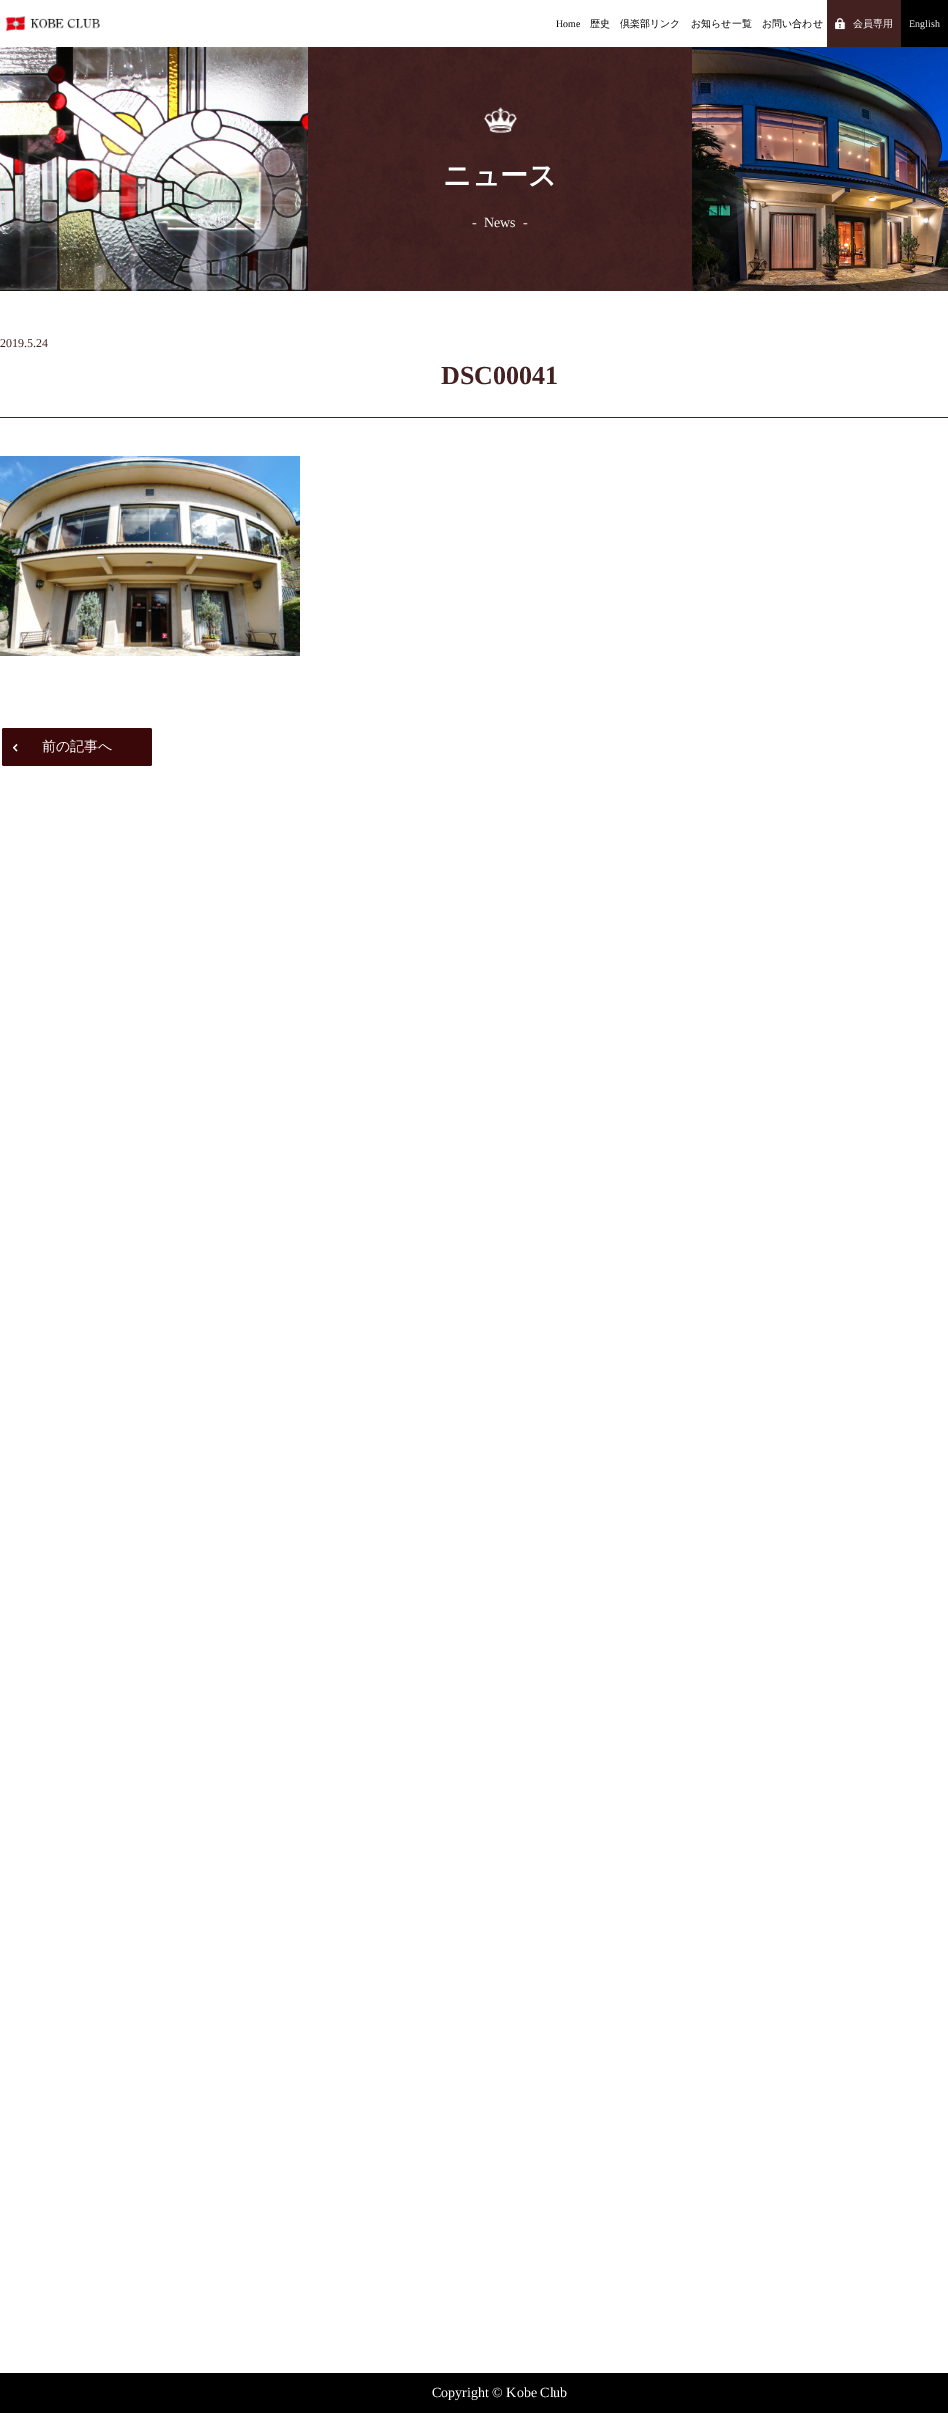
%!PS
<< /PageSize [948 2413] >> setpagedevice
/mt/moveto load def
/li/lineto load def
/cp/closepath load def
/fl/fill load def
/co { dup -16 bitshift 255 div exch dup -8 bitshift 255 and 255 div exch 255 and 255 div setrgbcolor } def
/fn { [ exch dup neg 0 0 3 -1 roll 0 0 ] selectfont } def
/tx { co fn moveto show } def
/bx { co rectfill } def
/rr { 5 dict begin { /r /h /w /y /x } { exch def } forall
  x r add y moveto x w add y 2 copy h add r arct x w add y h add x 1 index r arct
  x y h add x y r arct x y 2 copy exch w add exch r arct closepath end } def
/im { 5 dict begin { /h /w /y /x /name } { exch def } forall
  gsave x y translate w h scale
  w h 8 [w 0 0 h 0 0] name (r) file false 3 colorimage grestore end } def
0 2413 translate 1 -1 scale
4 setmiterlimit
0 0 948 2413 16#FFFFFF bx
(media/1.raw) 5 15 95 17 im
827 0 74 47 16#432121 bx
(media/2.raw) 835 17 11 13 im
901 0 47 47 16#000000 bx
(media/3.raw) 0 47 308 244 im
(media/4.raw) 308 47 384 244 im
(media/5.raw) 484 107 33 26 im
(media/6.raw) 692 47 256 244 im
0 417 948 1 16#432121 bx
(media/7.raw) 0 456 300 200 im
16#3A0808 co
2 728 150 38 2 rr fl
16#FFFFFF co
13 747.5 mt 16.5 744 li 17.5 745 li 14 748.5 li cp fl
13 747.5 mt 14 747 li 17.5 750.5 li 16.5 751.5 li cp fl
0 2373 948 40 16#000000 bx
(Home) 556 27 /LiberationSerif-Regular 10 16#000000 tx
(歴史) 590 27 /WenQuanYiZenHei-Medium 10 16#000000 tx
(倶楽部リンク) 620 27 /WenQuanYiZenHei-Medium 10 16#000000 tx
(お知らせ一覧) 691 27 /WenQuanYiZenHei-Medium 10 16#000000 tx
(お問い合わせ) 762 27 /WenQuanYiZenHei-Medium 10 16#000000 tx
(会員専用) 853 27 /WenQuanYiZenHei-Medium 10 16#FFFFFF tx
(English) 909 27 /LiberationSerif-Regular 10 16#FFFFFF tx
(ニュース) 443 185 /WenQuanYiZenHei-Bold 28 16#FFFFFF tx
(-) 472 227 /LiberationSerif-Regular 14 16#FFFFFF tx
(News) 484 227 /LiberationSerif-Regular 14 16#FFFFFF tx
(-) 523 227 /LiberationSerif-Regular 14 16#FFFFFF tx
(2019.5.24) 0 347 /LiberationSerif-Regular 12 16#432121 tx
(DSC00041) 441 384 /LiberationSerif-Bold 26 16#432121 tx
(前の記事へ) 42 751 /WenQuanYiZenHei-Medium 14 16#FFFFFF tx
(Copyright © Kobe Club) 432 2397 /LiberationSerif-Regular 14 16#FFFFFF tx
showpage
